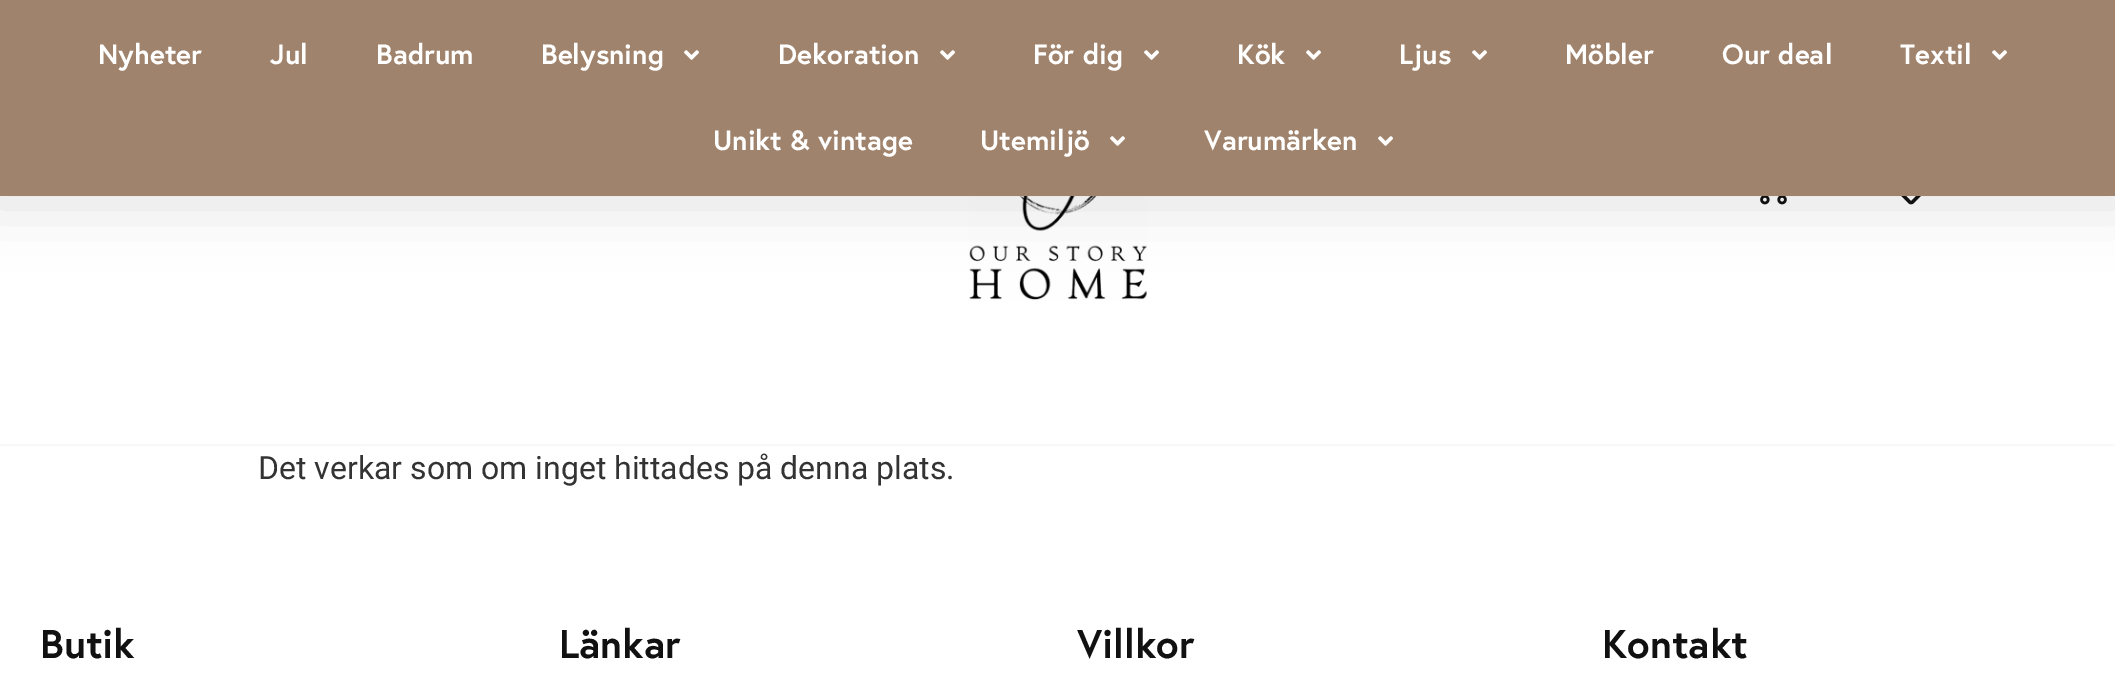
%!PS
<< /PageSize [2115 700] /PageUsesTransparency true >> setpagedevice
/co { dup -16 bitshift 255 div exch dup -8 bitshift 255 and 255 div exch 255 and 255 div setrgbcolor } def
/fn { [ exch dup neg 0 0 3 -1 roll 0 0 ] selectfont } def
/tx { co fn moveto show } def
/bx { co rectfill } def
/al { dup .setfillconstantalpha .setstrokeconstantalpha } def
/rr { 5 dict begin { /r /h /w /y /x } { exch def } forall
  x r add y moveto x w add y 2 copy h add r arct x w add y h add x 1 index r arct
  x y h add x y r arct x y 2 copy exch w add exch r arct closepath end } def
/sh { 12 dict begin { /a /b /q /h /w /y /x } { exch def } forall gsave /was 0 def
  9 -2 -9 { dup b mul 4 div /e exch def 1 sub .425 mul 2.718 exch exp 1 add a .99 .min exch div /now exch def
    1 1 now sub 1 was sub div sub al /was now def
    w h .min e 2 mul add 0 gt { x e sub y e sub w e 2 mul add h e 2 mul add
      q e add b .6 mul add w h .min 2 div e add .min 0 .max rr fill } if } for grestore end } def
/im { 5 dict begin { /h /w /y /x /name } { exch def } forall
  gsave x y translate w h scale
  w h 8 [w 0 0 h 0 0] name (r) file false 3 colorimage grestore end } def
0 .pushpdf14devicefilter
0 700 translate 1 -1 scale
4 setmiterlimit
0 0 2115 700 16#FFFFFF bx
(media/2.raw) 969 196 178 105 im
(media/3.raw) 1760 196 27 9 im
(media/4.raw) 1901 196 20 9 im
16#000000 co
-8 -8 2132 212 0 30 .12 sh
0 0 2115 196 16#A0836C bx
(media/1.raw) 684 50 15 10 im
(media/1.raw) 940 50 15 10 im
(media/1.raw) 1144 50 15 10 im
(media/1.raw) 1306 50 15 10 im
(media/1.raw) 1472 50 15 10 im
(media/1.raw) 1992 50 15 10 im
(media/1.raw) 1110 136 15 10 im
(media/1.raw) 1378 136 15 10 im
0 444 2115 2 16#F8F8F8 bx
(Nyheter) 98 64 /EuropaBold-Bold 28 16#FFFFFF tx
(Jul) 270 64 /EuropaBold-Bold 28 16#FFFFFF tx
(Badrum) 376 64 /EuropaBold-Bold 28 16#FFFFFF tx
(Belysning) 541 64 /EuropaBold-Bold 28 16#FFFFFF tx
(Dekoration) 778 64 /EuropaBold-Bold 28 16#FFFFFF tx
(För dig) 1033 64 /EuropaBold-Bold 28 16#FFFFFF tx
(Kök) 1237 64 /EuropaBold-Bold 28 16#FFFFFF tx
(Ljus) 1399 64 /EuropaBold-Bold 28 16#FFFFFF tx
(Möbler) 1565 64 /EuropaBold-Bold 28 16#FFFFFF tx
(Our deal) 1722 64 /EuropaBold-Bold 28 16#FFFFFF tx
(Textil) 1900 64 /EuropaBold-Bold 28 16#FFFFFF tx
(Unikt & vintage) 713 150 /EuropaBold-Bold 28 16#FFFFFF tx
(Utemiljö) 980 150 /EuropaBold-Bold 28 16#FFFFFF tx
(Varumärken) 1204 150 /EuropaBold-Bold 28 16#FFFFFF tx
(Det verkar som om inget hittades på denna plats.) 258 479 /Roboto-Regular 32 16#333333 tx
(Butik) 40 658 /EuropaBold-Bold 40 16#111111 tx
(Länkar) 559 658 /EuropaBold-Bold 40 16#111111 tx
(Villkor) 1077 658 /EuropaBold-Bold 40 16#111111 tx
(Kontakt) 1602 658 /EuropaBold-Bold 40 16#111111 tx
.poppdf14devicefilter showpage
